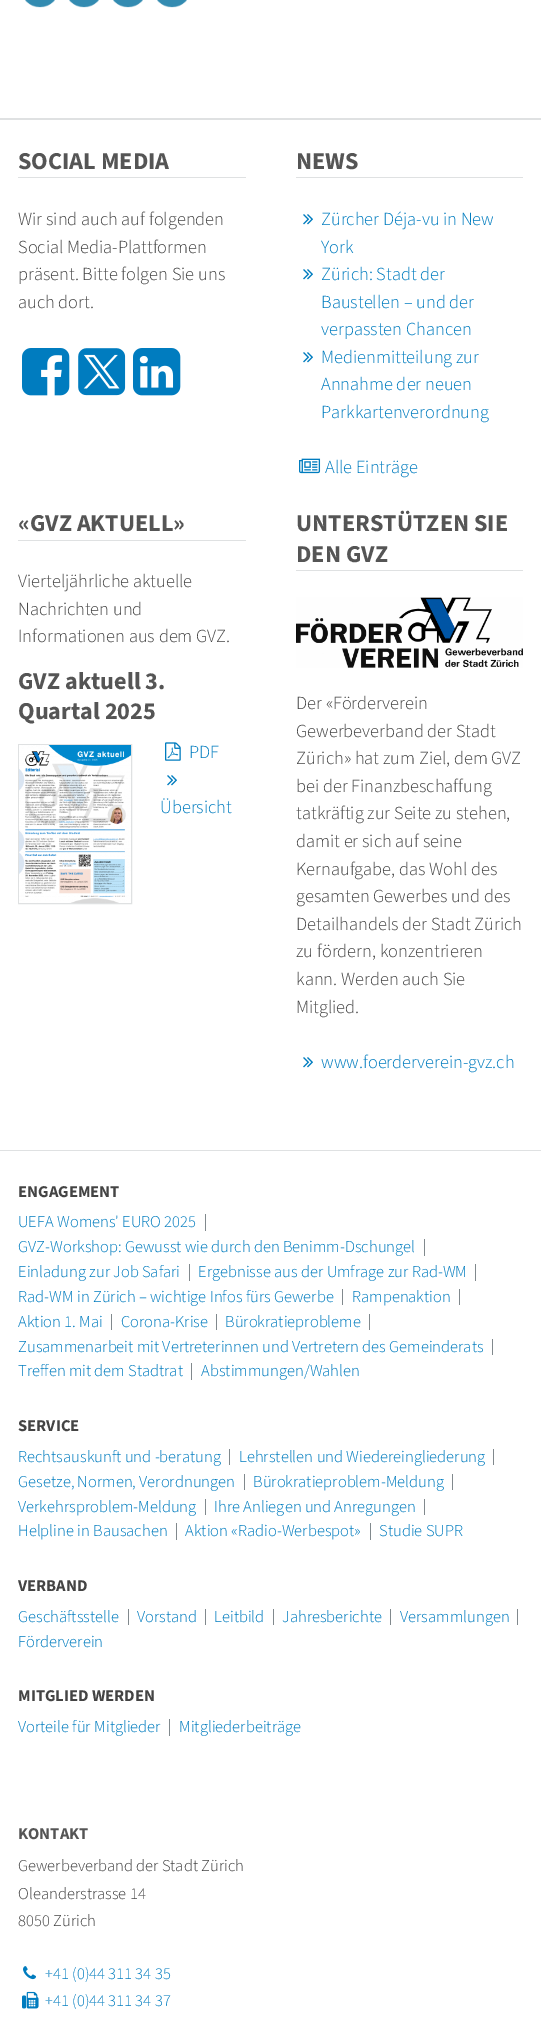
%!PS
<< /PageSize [541 2034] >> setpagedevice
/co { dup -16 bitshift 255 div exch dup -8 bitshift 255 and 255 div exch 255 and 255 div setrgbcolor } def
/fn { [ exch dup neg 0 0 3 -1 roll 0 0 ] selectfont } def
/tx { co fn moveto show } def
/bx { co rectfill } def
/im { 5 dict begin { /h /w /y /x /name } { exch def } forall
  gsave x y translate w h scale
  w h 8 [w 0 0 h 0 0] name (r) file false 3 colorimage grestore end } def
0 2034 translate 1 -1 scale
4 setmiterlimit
0 0 541 2034 16#FFFFFF bx
(media/1.raw) 25 0 30 8 im
(media/1.raw) 69 0 30 8 im
(media/1.raw) 113 0 30 8 im
(media/1.raw) 157 0 30 8 im
0 118 541 2 16#DFE1E2 bx
18 177 228 1 16#DFE1E2 bx
(media/2.raw) 22 348 48 48 im
(media/3.raw) 78 348 48 48 im
(media/4.raw) 133 348 48 48 im
296 177 227 1 16#DFE1E2 bx
(media/5.raw) 303 214 10 11 im
(media/5.raw) 303 269 10 11 im
(media/5.raw) 303 352 10 11 im
(media/6.raw) 299 458 22 16 im
18 540 228 1 16#DFE1E2 bx
18.5 744.5 113 159 rectstroke
(media/7.raw) 19 745 112 158 im
(media/8.raw) 165 742 16 19 im
(media/5.raw) 167 775 10 11 im
296 570 227 1 16#DFE1E2 bx
(media/9.raw) 296 597 227 71 im
(media/5.raw) 303 1057 10 11 im
0 1150 541 1 16#DFE1E2 bx
205 1214 1 17 16#81898D bx
424 1239 1 17 16#81898D bx
189 1264 1 17 16#81898D bx
475 1264 1 17 16#81898D bx
342 1289 1 16 16#81898D bx
459 1289 1 16 16#81898D bx
111 1314 1 16 16#81898D bx
216 1314 1 16 16#81898D bx
369 1314 1 16 16#81898D bx
492 1339 1 16 16#81898D bx
191 1363 1 17 16#81898D bx
229 1449 1 16 16#81898D bx
493 1449 1 16 16#81898D bx
244 1474 1 16 16#81898D bx
452 1474 1 16 16#81898D bx
205 1499 1 16 16#81898D bx
424 1499 1 16 16#81898D bx
176 1523 1 17 16#81898D bx
370 1523 1 17 16#81898D bx
128 1609 1 16 16#81898D bx
205 1609 1 16 16#81898D bx
273 1609 1 16 16#81898D bx
390 1609 1 16 16#81898D bx
517 1609 1 16 16#81898D bx
169 1719 1 17 16#81898D bx
(media/10.raw) 23 1966 13 14 im
(media/11.raw) 22 1991 17 18 im
(SOCIAL MEDIA) 18 169 /SourceSans3-Bold 24.25 16#555555 tx
(Wir sind auch auf folgenden) 18 225 /SourceSans3-Light 18.4 16#444444 tx
(Social Media-Plattformen) 18 253 /SourceSans3-Light 18.4 16#444444 tx
(präsent. Bitte folgen Sie uns) 18 280 /SourceSans3-Light 18.4 16#444444 tx
(auch dort.) 18 308 /SourceSans3-Light 18.4 16#444444 tx
(NEWS) 296 169 /SourceSans3-Bold 24.25 16#555555 tx
(Zürcher Déja-vu in New) 321 225 /SourceSans3-Light 18.4 16#007CBF tx
(York) 321 253 /SourceSans3-Light 18.4 16#007CBF tx
(Zürich: Stadt der) 321 280 /SourceSans3-Light 18.4 16#007CBF tx
(Baustellen – und der) 321 308 /SourceSans3-Light 18.4 16#007CBF tx
(verpassten Chancen) 321 335 /SourceSans3-Light 18.4 16#007CBF tx
(Medienmitteilung zur) 321 363 /SourceSans3-Light 18.4 16#007CBF tx
(Annahme der neuen) 321 390 /SourceSans3-Light 18.4 16#007CBF tx
(Parkkartenverordnung) 321 418 /SourceSans3-Light 18.4 16#007CBF tx
(Alle Einträge) 325 473 /SourceSans3-Light 18.4 16#007CBF tx
(«GVZ AKTUELL») 18 531 /SourceSans3-Bold 24.25 16#555555 tx
(Vierteljährliche aktuelle) 18 587 /SourceSans3-Light 18.4 16#444444 tx
(Nachrichten und) 18 615 /SourceSans3-Light 18.4 16#444444 tx
(Informationen aus dem GVZ.) 18 642 /SourceSans3-Light 18.4 16#444444 tx
(GVZ aktuell 3.) 18 689 /SourceSans3-Bold 24.25 16#555555 tx
(Quartal 2025) 18 719 /SourceSans3-Bold 24.25 16#555555 tx
(PDF) 189 758 /SourceSans3-Light 18.4 16#007CBF tx
(Übersicht) 160 813 /SourceSans3-Light 18.4 16#007CBF tx
(UNTERSTÜTZEN SIE) 296 531 /SourceSans3-Bold 24.25 16#555555 tx
(DEN GVZ) 296 562 /SourceSans3-Bold 24.25 16#555555 tx
(Der «Förderverein) 296 709 /SourceSans3-Light 18.4 16#444444 tx
(Gewerbeverband der Stadt) 296 737 /SourceSans3-Light 18.4 16#444444 tx
(Zürich» hat zum Ziel, dem GVZ) 296 764 /SourceSans3-Light 18.4 16#444444 tx
(bei der Finanzbeschaffung) 296 792 /SourceSans3-Light 18.4 16#444444 tx
(tatkräftig zur Seite zu stehen,) 296 819 /SourceSans3-Light 18.4 16#444444 tx
(damit er sich auf seine) 296 847 /SourceSans3-Light 18.4 16#444444 tx
(Kernaufgabe, das Wohl des) 296 875 /SourceSans3-Light 18.4 16#444444 tx
(gesamten Gewerbes und des) 296 902 /SourceSans3-Light 18.4 16#444444 tx
(Detailhandels der Stadt Zürich) 296 930 /SourceSans3-Light 18.4 16#444444 tx
(zu fördern, konzentrieren) 296 957 /SourceSans3-Light 18.4 16#444444 tx
(kann. Werden auch Sie) 296 985 /SourceSans3-Light 18.4 16#444444 tx
(Mitglied.) 296 1013 /SourceSans3-Light 18.4 16#444444 tx
(www.foerderverein-gvz.ch) 321 1068 /SourceSans3-Light 18.4 16#007CBF tx
(ENGAGEMENT) 18 1197 /SourceSans3-Bold 16.55 16#444444 tx
(UEFA Womens' EURO 2025) 18 1227 /SourceSans3-Light 16.55 16#007CBF tx
(GVZ-Workshop: Gewusst wie durch den Benimm-Dschungel) 18 1252 /SourceSans3-Light 16.55 16#007CBF tx
(Einladung zur Job Safari) 18 1277 /SourceSans3-Light 16.55 16#007CBF tx
(Ergebnisse aus der Umfrage zur Rad-WM) 198 1277 /SourceSans3-Light 16.55 16#007CBF tx
(Rad-WM in Zürich – wichtige Infos fürs Gewerbe) 18 1302 /SourceSans3-Light 16.55 16#007CBF tx
(Rampenaktion) 352 1302 /SourceSans3-Light 16.55 16#007CBF tx
(Aktion 1. Mai) 18 1327 /SourceSans3-Light 16.55 16#007CBF tx
(Corona-Krise) 121 1327 /SourceSans3-Light 16.55 16#007CBF tx
(Bürokratieprobleme) 225 1327 /SourceSans3-Light 16.55 16#007CBF tx
(Zusammenarbeit mit Vertreterinnen und Vertretern des Gemeinderats) 18 1352 /SourceSans3-Light 16.55 16#007CBF tx
(Treffen mit dem Stadtrat) 18 1376 /SourceSans3-Light 16.55 16#007CBF tx
(Abstimmungen/Wahlen) 201 1376 /SourceSans3-Light 16.55 16#007CBF tx
(SERVICE) 18 1431 /SourceSans3-Bold 16.55 16#444444 tx
(Rechtsauskunft und -beratung) 18 1462 /SourceSans3-Light 16.55 16#007CBF tx
(Lehrstellen und Wiedereingliederung) 239 1462 /SourceSans3-Light 16.55 16#007CBF tx
(Gesetze, Normen, Verordnungen) 18 1487 /SourceSans3-Light 16.55 16#007CBF tx
(Bürokratieproblem-Meldung) 253 1487 /SourceSans3-Light 16.55 16#007CBF tx
(Verkehrsproblem-Meldung) 18 1512 /SourceSans3-Light 16.55 16#007CBF tx
(Ihre Anliegen und Anregungen) 214 1512 /SourceSans3-Light 16.55 16#007CBF tx
(Helpline in Bausachen) 18 1536 /SourceSans3-Light 16.55 16#007CBF tx
(Aktion «Radio-Werbespot») 185 1536 /SourceSans3-Light 16.55 16#007CBF tx
(Studie SUPR) 379 1536 /SourceSans3-Light 16.55 16#007CBF tx
(VERBAND) 18 1591 /SourceSans3-Bold 16.55 16#444444 tx
(Geschäftsstelle) 18 1622 /SourceSans3-Light 16.55 16#007CBF tx
(Vorstand) 137 1622 /SourceSans3-Light 16.55 16#007CBF tx
(Leitbild) 214 1622 /SourceSans3-Light 16.55 16#007CBF tx
(Jahresberichte) 282 1622 /SourceSans3-Light 16.55 16#007CBF tx
(Versammlungen) 400 1622 /SourceSans3-Light 16.55 16#007CBF tx
(Förderverein) 18 1647 /SourceSans3-Light 16.55 16#007CBF tx
(MITGLIED WERDEN) 18 1701 /SourceSans3-Bold 16.55 16#444444 tx
(Vorteile für Mitglieder) 18 1732 /SourceSans3-Light 16.55 16#007CBF tx
(Mitgliederbeiträge) 179 1732 /SourceSans3-Light 16.55 16#007CBF tx
(KONTAKT) 18 1839 /SourceSans3-Bold 16.55 16#555555 tx
(Gewerbeverband der Stadt Zürich) 18 1871 /SourceSans3-Light 16.55 16#444444 tx
(Oleanderstrasse 14) 18 1899 /SourceSans3-Light 16.55 16#444444 tx
(8050 Zürich) 18 1926 /SourceSans3-Light 16.55 16#444444 tx
(+41 \(0\)44 311 34 35) 45 1979 /SourceSans3-Light 16.55 16#007CBF tx
(+41 \(0\)44 311 34 37) 45 2006 /SourceSans3-Light 16.55 16#007CBF tx
showpage
